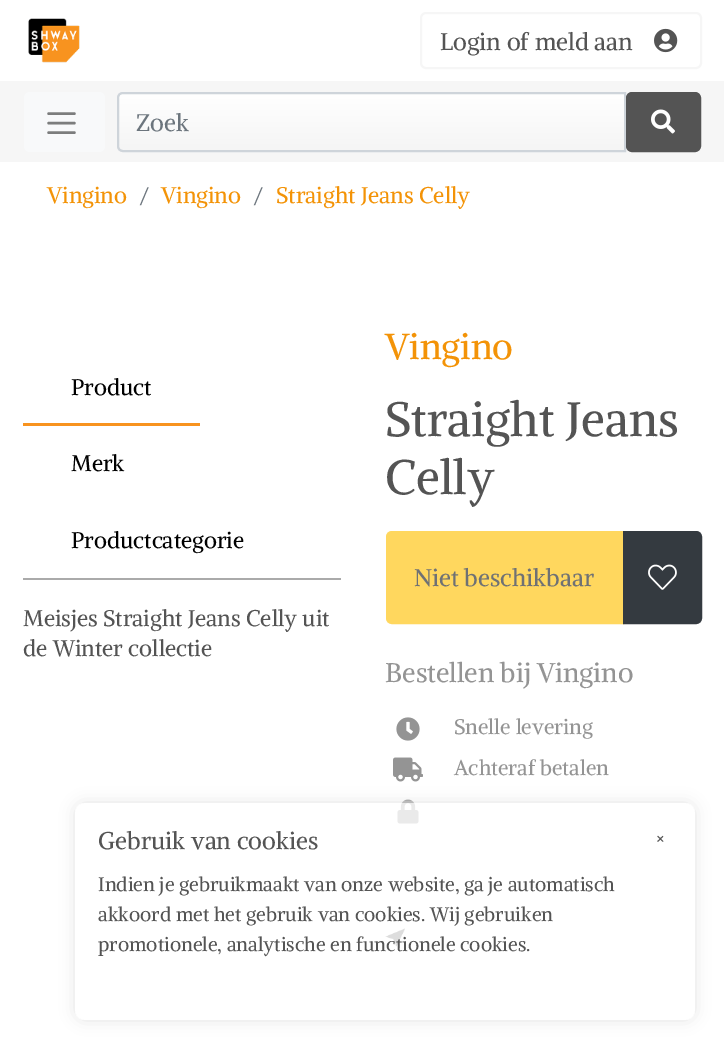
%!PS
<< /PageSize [724 1050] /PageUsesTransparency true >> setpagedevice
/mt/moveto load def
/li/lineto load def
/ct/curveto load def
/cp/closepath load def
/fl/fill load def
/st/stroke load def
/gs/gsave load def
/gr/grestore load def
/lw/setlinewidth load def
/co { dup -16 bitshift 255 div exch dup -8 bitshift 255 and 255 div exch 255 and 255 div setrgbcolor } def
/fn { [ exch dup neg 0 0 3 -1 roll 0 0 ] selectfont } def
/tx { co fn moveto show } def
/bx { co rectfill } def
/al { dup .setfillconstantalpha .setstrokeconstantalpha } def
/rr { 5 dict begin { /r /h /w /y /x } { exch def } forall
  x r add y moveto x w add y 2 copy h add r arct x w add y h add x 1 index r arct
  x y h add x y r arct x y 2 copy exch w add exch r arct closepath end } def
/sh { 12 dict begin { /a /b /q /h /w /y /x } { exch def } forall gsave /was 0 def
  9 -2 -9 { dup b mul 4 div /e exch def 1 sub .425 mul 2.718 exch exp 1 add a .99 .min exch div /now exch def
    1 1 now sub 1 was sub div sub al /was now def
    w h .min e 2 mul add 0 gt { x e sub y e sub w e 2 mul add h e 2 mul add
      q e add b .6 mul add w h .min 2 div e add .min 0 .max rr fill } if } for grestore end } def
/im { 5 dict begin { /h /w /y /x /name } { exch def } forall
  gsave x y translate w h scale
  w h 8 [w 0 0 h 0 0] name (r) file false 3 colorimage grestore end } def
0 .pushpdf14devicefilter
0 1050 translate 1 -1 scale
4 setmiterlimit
0 0 724 1050 16#FFFFFF bx
(media/1.raw) 28 18 52 45 im
16#F6F6F6 co
2 lw
421 13 280 55 5 rr st
(media/2.raw) 654 28 24 25 im
0 81 724 81 16#F6F6F6 bx
16#F8F9FA co
24 92 81 60 6 rr fl
16#7C7D7D co
2.4 lw
1 setlinecap
48.5 113.5 mt 74.5 113.5 li 48.5 123 mt 74.5 123 li 48.5 132.5 mt 74.5 132.5 li st
gs 124 93 mt 624 93 li 624 150 li 124 150 li 121 150 119 148 119 145 ct 119 98 li 119 95 121 93 124 93 ct cp clip newpath
<< /ShadingType 2 /ColorSpace /DeviceRGB /Coords [371 93 371 150] /Extend [true true] /Function << /FunctionType 2 /Domain [0 1] /C0 [1 1 1] /C1 [.961 .961 .961] /N 1 >> >> shfill gr
16#CED4DA co
2 lw
0 setlinecap
123 93 mt 625 93 li 625 151 li 123 151 li 120 151 118 149 118 146 ct 118 98 li 118 95 120 93 123 93 ct cp st
16#545454 co
627.5 93.5 72 57 4.5 rr gs fl gr
3 lw
st
(media/3.raw) 651 109 24 25 im
23 578 318 2 16#AAAAAA bx
23 423 177 3 16#F8931F bx
16#FFD75E co
392 532 mt 623 532 li 623 623 li 392 623 li 389 623 387 621 387 618 ct 387 537 li 387 534 389 532 392 532 ct cp gs fl gr
2 lw
st
16#343A40 co
624 532 mt 696 532 li 699 532 701 534 701 537 ct 701 618 li 701 621 699 623 696 623 ct 624 623 li cp gs fl gr
st
(media/4.raw) 648 564 29 26 im
(media/5.raw) 396 717 24 24 im
(media/6.raw) 393 757 30 25 im
(media/7.raw) 397 799 22 25 im
(media/8.raw) 385 928 20 19 im
gs
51 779 mt 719 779 li 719 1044 li 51 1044 li cp 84 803 mt 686 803 li 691 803 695 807 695 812 ct 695 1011 li 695 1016 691 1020 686 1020 ct 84 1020 li 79 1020 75 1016 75 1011 ct 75 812 li 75 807 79 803 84 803 ct cp eoclip newpath
16#E3E3E3 co
75 803 620 217 9 7.5 1 sh
gr
0.8 al
16#FFFFFF co
75 803 620 217 9 rr fl
1 al
(Login of meld aan) 440 50 /Alike-Regular 24 16#545454 tx
(Zoek) 136 131 /Alike-Regular 24 16#6C757D tx
(Vingino) 47 203 /Alike-Regular 22.5 16#F39307 tx
(/) 139 203 /Alike-Regular 22.5 16#6C757D tx
(Vingino) 161 203 /Alike-Regular 22.5 16#F39307 tx
(/) 253 203 /Alike-Regular 22.5 16#6C757D tx
(Straight Jeans Celly) 276 203 /Alike-Regular 22.5 16#F39307 tx
(Product) 71 395 /Alike-Regular 22.5 16#000000 tx
(Merk) 71 471 /Alike-Regular 22.5 16#000000 tx
(Productcategorie) 71 548 /Alike-Regular 22.5 16#000000 tx
(Meisjes Straight Jeans Celly uit) 23 626 /Alike-Regular 22.5 16#545454 tx
(de Winter collectie) 23 656 /Alike-Regular 22.5 16#545454 tx
(Vingino) 385 359 /Alike-Regular 36 16#F39307 tx
(Straight Jeans) 385 436 /Alike-Regular 48 16#545454 tx
(Celly) 385 494 /Alike-Regular 48 16#545454 tx
(Niet beschikbaar) 414 586 /Alike-Regular 24 16#6F7174 tx
(Bestellen bij Vingino) 385 682 /Alike-Regular 27 16#949494 tx
(Snelle levering) 454 734 /Alike-Regular 21 16#949494 tx
(Achteraf betalen) 454 775 /Alike-Regular 21 16#949494 tx
(Gebruik van cookies) 98 849 /Alike-Regular 24 16#545454 tx
(×) 656 845 /Alike-Regular 19.5 16#545454 tx
(Indien je gebruikmaakt van onze website, ga je automatisch) 98 891 /Alike-Regular 19.5 16#545454 tx
(akkoord met het gebruik van cookies. Wij gebruiken) 98 921 /Alike-Regular 19.5 16#545454 tx
(promotionele, analytische en functionele cookies.) 98 951 /Alike-Regular 19.5 16#545454 tx
.poppdf14devicefilter showpage
